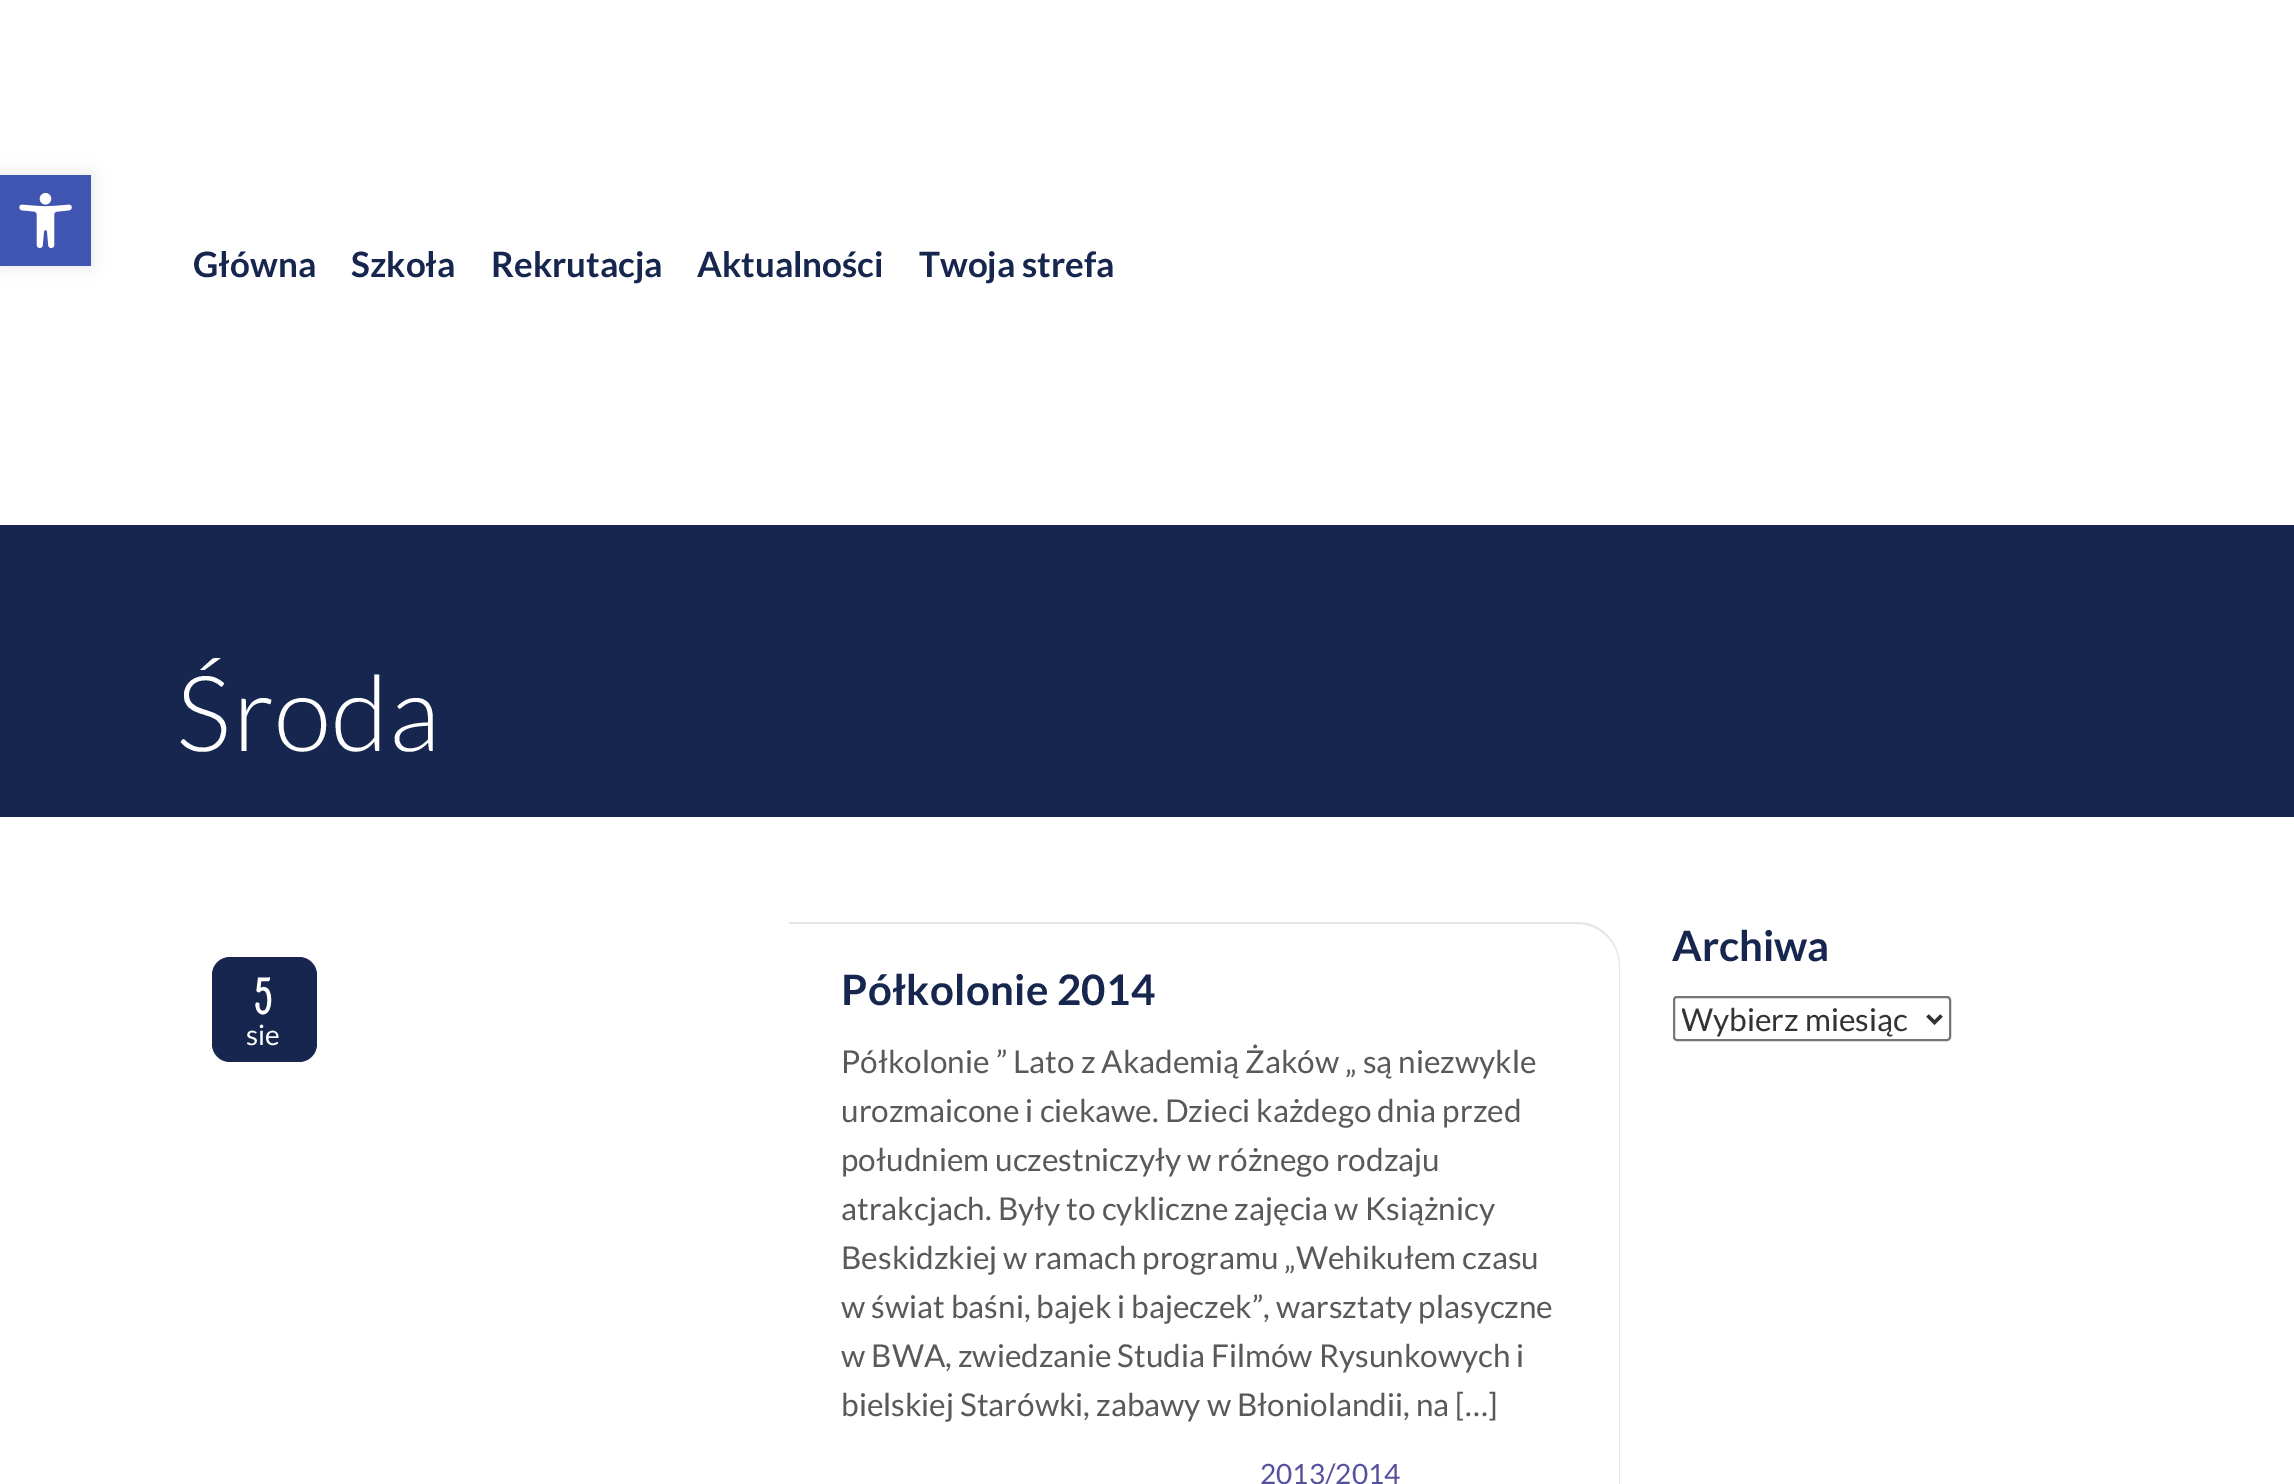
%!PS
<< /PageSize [2294 1484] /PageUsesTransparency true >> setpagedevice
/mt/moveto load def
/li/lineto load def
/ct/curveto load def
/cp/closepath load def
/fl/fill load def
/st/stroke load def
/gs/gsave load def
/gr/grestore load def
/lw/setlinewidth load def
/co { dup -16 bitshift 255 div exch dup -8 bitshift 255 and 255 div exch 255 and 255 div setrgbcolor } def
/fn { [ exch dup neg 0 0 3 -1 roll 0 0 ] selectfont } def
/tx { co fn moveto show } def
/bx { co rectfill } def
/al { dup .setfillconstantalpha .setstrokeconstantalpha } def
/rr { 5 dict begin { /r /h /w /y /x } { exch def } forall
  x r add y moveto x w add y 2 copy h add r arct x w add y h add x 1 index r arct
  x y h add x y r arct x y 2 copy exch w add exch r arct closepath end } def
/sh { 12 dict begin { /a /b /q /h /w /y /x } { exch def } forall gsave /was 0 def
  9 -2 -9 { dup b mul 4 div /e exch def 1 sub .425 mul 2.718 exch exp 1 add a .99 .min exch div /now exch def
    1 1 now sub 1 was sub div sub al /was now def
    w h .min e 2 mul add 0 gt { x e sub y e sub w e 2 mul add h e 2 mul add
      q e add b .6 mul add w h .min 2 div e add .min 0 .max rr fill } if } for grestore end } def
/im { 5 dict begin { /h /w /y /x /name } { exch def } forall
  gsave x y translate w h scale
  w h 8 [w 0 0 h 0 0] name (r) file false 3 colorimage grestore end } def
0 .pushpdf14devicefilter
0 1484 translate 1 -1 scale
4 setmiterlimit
0 0 2294 1484 16#FFFFFF bx
16#000000 co
0 175 91 91 0 9 .1 sh
0 175 91 91 16#4054B2 bx
(media/1.raw) 19 193 53 56 im
0 525 2294 292 16#16264E bx
212 957 105 105 18 rr fl
16#E6E6E6 co
789 922 mt 1577 922 li 1601 922 1620 942 1620 966 ct 1620 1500 li 1620 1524 1601 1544 1577 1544 ct 789 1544 li cp 789 924 mt 1577 924 li 1600 924 1619 943 1619 966 ct 1619 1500 li 1619 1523 1600 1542 1577 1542 ct 789 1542 li cp eofill
16#767676 co
2 lw
1674 997 276 43 3 rr st
16#333333 co
3.5 lw
1927.5 1015.5 mt 1934.5 1022.5 li 1941.5 1015.5 li st
(Główna) 193 277 /Lato-Bold 35 16#16264E tx
(Szkoła) 351 277 /Lato-Bold 35 16#16264E tx
(Rekrutacja) 491 277 /Lato-Bold 35 16#16264E tx
(Aktualności) 697 277 /Lato-Bold 35 16#16264E tx
(Twoja strefa) 919 277 /Lato-Bold 35 16#16264E tx
(Środa) 176 751 /Lato-Light 105 16#FFFFFF tx
(5) 254 1013 /GrandHotel-Regular 52 16#FFFFFF tx
(sie) 246 1045 /Lato-Regular 28 16#FFFFFF tx
/Lato-Bold 42 fn
16#16264E co
841 1005 mt .3 0 (Półkolonie 2014) ashow
(Półkolonie ” Lato z Akademią Żaków „ są niezwykle) 841 1073 /Lato-Regular 31.5 16#595959 tx
(urozmaicone i ciekawe. Dzieci każdego dnia przed) 841 1122 /Lato-Regular 31.5 16#595959 tx
(południem uczestniczyły w różnego rodzaju) 841 1171 /Lato-Regular 31.5 16#595959 tx
(atrakcjach. Były to cykliczne zajęcia w Książnicy) 841 1220 /Lato-Regular 31.5 16#595959 tx
(Beskidzkiej w ramach programu „Wehikułem czasu) 841 1269 /Lato-Regular 31.5 16#595959 tx
(w świat baśni, bajek i bajeczek”, warsztaty plasyczne) 841 1318 /Lato-Regular 31.5 16#595959 tx
(w BWA, zwiedzanie Studia Filmów Rysunkowych i) 841 1367 /Lato-Regular 31.5 16#595959 tx
(bielskiej Starówki, zabawy w Błoniolandii, na […]) 841 1416 /Lato-Regular 31.5 16#595959 tx
(2013/2014) 1260 1484 /Lato-Regular 28 16#56509F tx
(Archiwa) 1672 961 /Lato-Bold 42 16#16264E tx
gs
1682 998 240 42 rectclip
(Wybierz miesiąc) 1681 1031 /Lato-Regular 31.5 16#333333 tx
gr
.poppdf14devicefilter showpage
